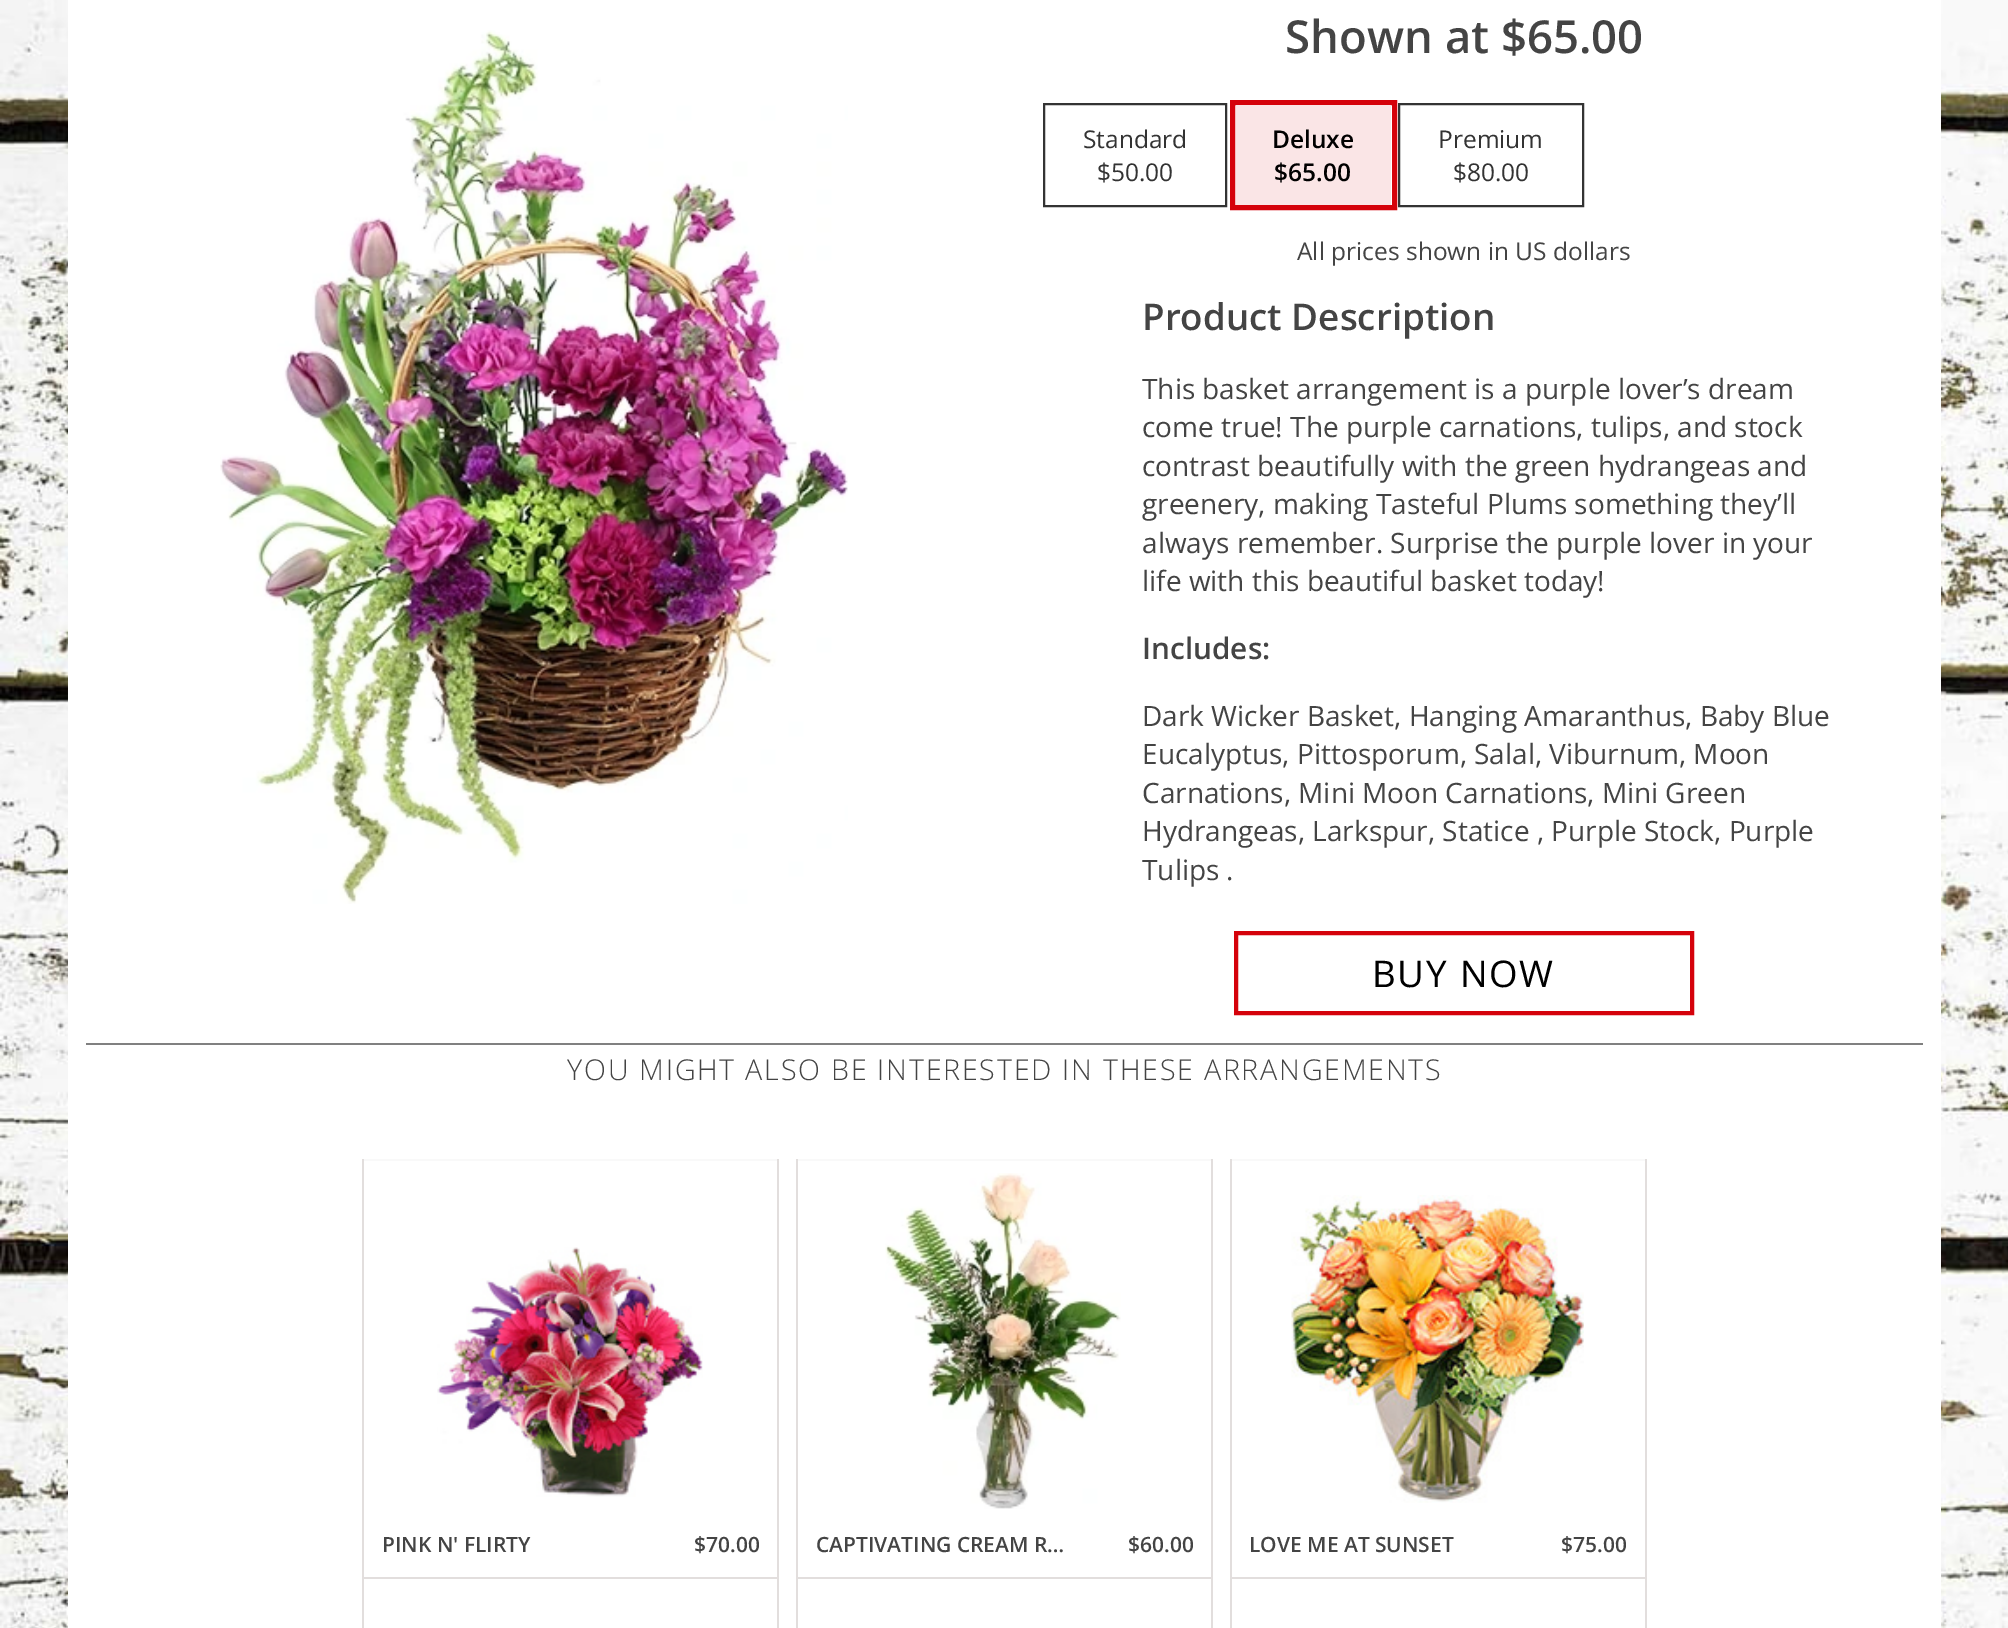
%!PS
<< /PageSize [2008 1628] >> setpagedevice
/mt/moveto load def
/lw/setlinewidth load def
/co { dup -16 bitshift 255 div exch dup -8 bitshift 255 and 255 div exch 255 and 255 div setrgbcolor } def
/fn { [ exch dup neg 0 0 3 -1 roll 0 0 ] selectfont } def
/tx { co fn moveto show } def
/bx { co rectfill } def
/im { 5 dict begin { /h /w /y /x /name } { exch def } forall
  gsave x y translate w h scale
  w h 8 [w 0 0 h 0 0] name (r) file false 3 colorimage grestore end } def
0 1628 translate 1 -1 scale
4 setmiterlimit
0 0 2008 1628 16#FFFFFF bx
(media/1.raw) 0 0 2008 1628 im
68 0 1873 1628 16#FFFFFF bx
(media/2.raw) 220 30 628 874 im
16#333333 co
2 lw
1044 104 182 102 rectstroke
16#D5020B co
5 lw
1232.5 102.5 162 105 rectstroke
1236 105 155 100 16#FAE5E6 bx
16#333333 co
2 lw
1399 104 184 102 rectstroke
16#D5020B co
4 lw
1236 933 456 80 rectstroke
86 1043 1837 2 16#808080 bx
362 1159 417 2 16#F9F9F9 bx
777 1159 2 469 16#E2DEDD bx
362 1159 2 469 16#E2DEDD bx
(media/3.raw) 437 1247 266 250 im
364 1577 413 2 16#E2DEDD bx
796 1159 417 2 16#F9F9F9 bx
1211 1159 2 469 16#E2DEDD bx
796 1159 2 469 16#E2DEDD bx
(media/4.raw) 885 1173 236 336 im
798 1577 413 2 16#E2DEDD bx
1230 1159 417 2 16#F9F9F9 bx
1645 1159 2 469 16#E2DEDD bx
1230 1159 2 469 16#E2DEDD bx
(media/5.raw) 1291 1195 293 308 im
1232 1577 413 2 16#E2DEDD bx
(Shown at $65.00) 1285 53 /OpenSans-SemiBold 45.5 16#444444 tx
(Standard) 1083 148 /OpenSans-Regular 24.5 16#333333 tx
($50.00) 1097 181 /OpenSans-Regular 24.5 16#333333 tx
(Deluxe) 1272 148 /OpenSans-SemiBold 24.5 16#000000 tx
($65.00) 1274 181 /OpenSans-SemiBold 24.5 16#000000 tx
(Premium) 1438 148 /OpenSans-Regular 24.5 16#333333 tx
($80.00) 1453 181 /OpenSans-Regular 24.5 16#333333 tx
(All prices shown in US dollars) 1297 260 /OpenSans-Regular 24.5 16#444444 tx
(Product Description) 1142 330 /OpenSans-SemiBold 36.75 16#444444 tx
(This basket arrangement is a purple lover’s dream) 1142 399 /OpenSans-Regular 28 16#444444 tx
(come true! The purple carnations, tulips, and stock) 1142 437 /OpenSans-Regular 28 16#444444 tx
(contrast beautifully with the green hydrangeas and) 1142 476 /OpenSans-Regular 28 16#444444 tx
(greenery, making Tasteful Plums something they’ll) 1142 514 /OpenSans-Regular 28 16#444444 tx
(always remember. Surprise the purple lover in your) 1142 553 /OpenSans-Regular 28 16#444444 tx
(life with this beautiful basket today!) 1142 591 /OpenSans-Regular 28 16#444444 tx
(Includes:) 1142 659 /OpenSans-SemiBold 29.75 16#444444 tx
(Dark Wicker Basket, Hanging Amaranthus, Baby Blue) 1142 726 /OpenSans-Regular 28 16#444444 tx
(Eucalyptus, Pittosporum, Salal, Viburnum, Moon) 1142 764 /OpenSans-Regular 28 16#444444 tx
(Carnations, Mini Moon Carnations, Mini Green) 1142 803 /OpenSans-Regular 28 16#444444 tx
(Hydrangeas, Larkspur, Statice , Purple Stock, Purple) 1142 841 /OpenSans-Regular 28 16#444444 tx
(Tulips .) 1142 880 /OpenSans-Regular 28 16#444444 tx
/OpenSans-Regular 36.75 fn
16#000000 co
1372 987 mt 1.75 0 (BUY NOW) ashow
/OpenSans-Light 28.65 fn
16#444444 co
567 1080 mt 1.75 0 (YOU MIGHT ALSO BE INTERESTED IN THESE ARRANGEMENTS) ashow
(PINK N' FLIRTY) 382 1552 /OpenSans-SemiBold 21 16#444444 tx
($70.00) 694 1552 /OpenSans-SemiBold 21 16#444444 tx
(CAPTIVATING CREAM R…) 816 1552 /OpenSans-SemiBold 21 16#444444 tx
($60.00) 1128 1552 /OpenSans-SemiBold 21 16#444444 tx
(LOVE ME AT SUNSET) 1249 1552 /OpenSans-SemiBold 21 16#444444 tx
($75.00) 1561 1552 /OpenSans-SemiBold 21 16#444444 tx
showpage
